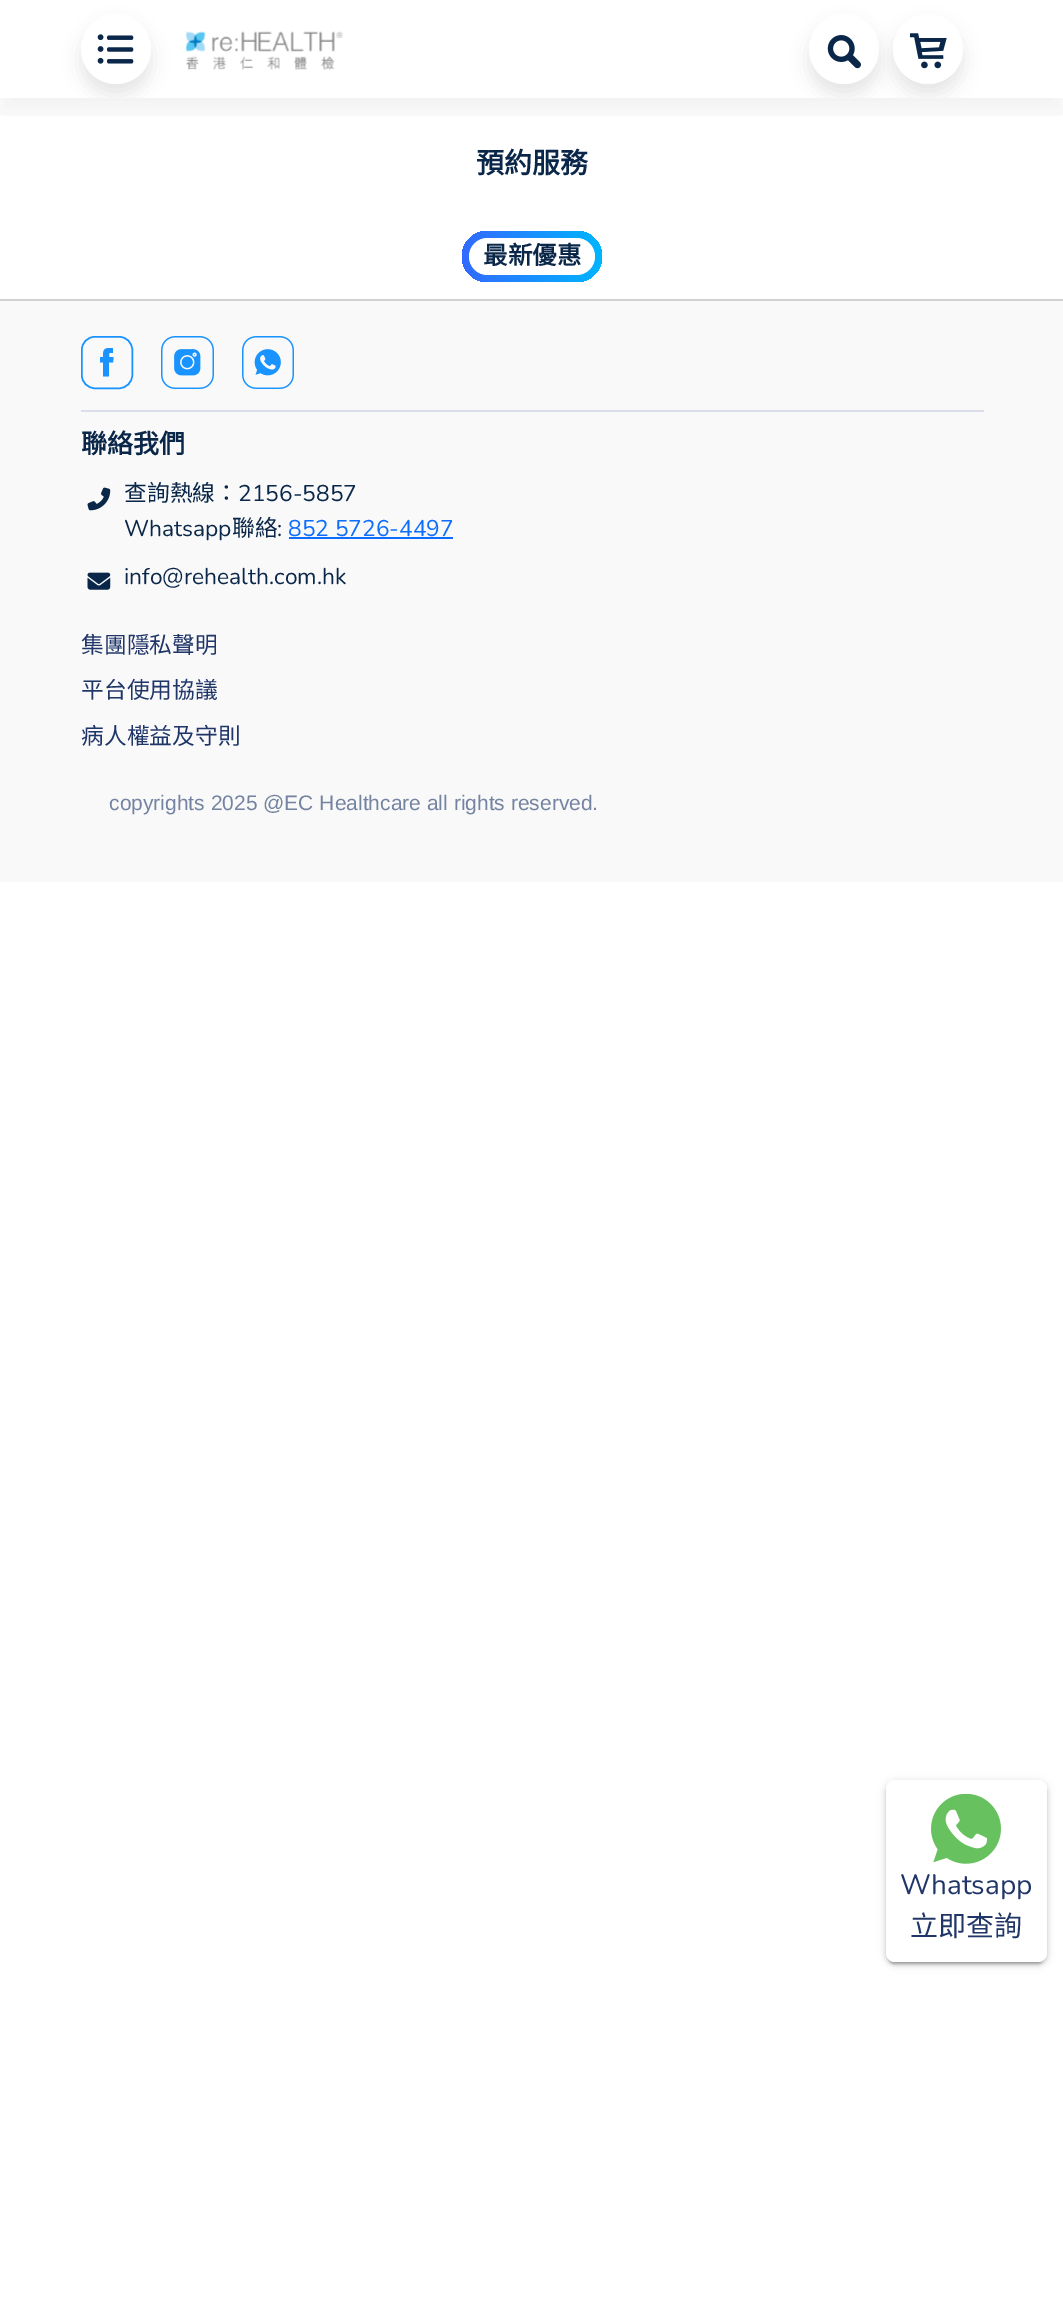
%!PS
<< /PageSize [1063 2311] /PageUsesTransparency true >> setpagedevice
/mt/moveto load def
/li/lineto load def
/ct/curveto load def
/cp/closepath load def
/fl/fill load def
/st/stroke load def
/gs/gsave load def
/gr/grestore load def
/lw/setlinewidth load def
/co { dup -16 bitshift 255 div exch dup -8 bitshift 255 and 255 div exch 255 and 255 div setrgbcolor } def
/fn { [ exch dup neg 0 0 3 -1 roll 0 0 ] selectfont } def
/tx { co fn moveto show } def
/bx { co rectfill } def
/al { dup .setfillconstantalpha .setstrokeconstantalpha } def
/ci { newpath 0 360 arc closepath } def
/rr { 5 dict begin { /r /h /w /y /x } { exch def } forall
  x r add y moveto x w add y 2 copy h add r arct x w add y h add x 1 index r arct
  x y h add x y r arct x y 2 copy exch w add exch r arct closepath end } def
/sh { 12 dict begin { /a /b /q /h /w /y /x } { exch def } forall gsave /was 0 def
  9 -2 -9 { dup b mul 4 div /e exch def 1 sub .425 mul 2.718 exch exp 1 add a .99 .min exch div /now exch def
    1 1 now sub 1 was sub div sub al /was now def
    w h .min e 2 mul add 0 gt { x e sub y e sub w e 2 mul add h e 2 mul add
      q e add b .6 mul add w h .min 2 div e add .min 0 .max rr fill } if } for grestore end } def
/im { 5 dict begin { /h /w /y /x /name } { exch def } forall
  gsave x y translate w h scale
  w h 8 [w 0 0 h 0 0] name (r) file false 3 colorimage grestore end } def
0 .pushpdf14devicefilter
0 2311 translate 1 -1 scale
4 setmiterlimit
0 0 1063 2311 16#FFFFFF bx
gs
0 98 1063 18 rectclip
16#000000 co
0 14 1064 98 0 14 .05 sh
gr
gs
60 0 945 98 rectclip
16#000000 co
81 25 70 70 35 9 .1 sh
gr
116 49 35 ci fl
(media/1.raw) 97 34 37 30 im
(media/2.raw) 185 31 158 39 im
gs
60 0 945 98 rectclip
16#000000 co
809 25 70 70 35 9 .1 sh
gr
844 49 35 ci fl
(media/3.raw) 827 35 34 34 im
gs
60 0 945 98 rectclip
16#000000 co
893 25 70 70 35 9 .1 sh
gr
928 49 35 ci fl
(media/4.raw) 910 33 37 36 im
gs 462 231 140 51 25.5 rr clip newpath
<< /ShadingType 2 /ColorSpace /DeviceRGB /Coords [602 256 462 256] /Extend [true true] /Function << /FunctionType 2 /Domain [0 1] /C0 [0 .71 .996] /C1 [.196 .416 1] /N 1 >> >> shfill gr
469 238 126 37 18.5 rr fl
0 301 1063 581 16#F9F9F9 bx
0 299 1063 2 16#D0D1D2 bx
81 410 903 2 16#D9DEE8 bx
16#1893FF co
1.5 lw
81.75 336.75 50.5 51.5 13.25 rr st
113 362.5 mt 109 362.5 li 109 376.5 li 103 376.5 li 103 362.5 li 100 362.5 li 100 357 li 103 357 li 103 348 104.5 348 113 348 ct 113 353 li 109 353 109 352 109 357 ct 113.5 357 li cp fl
(media/5.raw) 161 336 53 53 im
(media/6.raw) 242 336 52 53 im
(media/7.raw) 87 487 24 24 im
289 537 164 2 16#0D6EFD bx
(media/8.raw) 87 572 24 18 im
16#000000 co
886 1782 161 182 9 4.5 .12 sh
886 1783 161 182 9 2 .14 sh
889 1789 154 175 5 1 .2 sh
16#FFFFFF co
886 1780 161 182 9 rr fl
(media/9.raw) 931 1794 70 70 im
(預約服務) 476 173 /NotoSansTC-Bold 28 16#0A2749 tx
(最新優惠) 483 264 /NotoSansTC-Bold 24.5 16#0A2749 tx
(聯絡我們) 81 453 /NotoSansTC-Bold 26 16#0A2749 tx
(查詢熱線：) 124 501 /NotoSansTC-Thin 22.75 16#0A2749 tx
(2156-5857) 238 501 /Nunito-Regular 22.75 16#0A2749 tx
(Whatsapp) 124 536 /Nunito-Regular 22.75 16#0A2749 tx
(聯絡) 232 536 /NotoSansTC-Thin 22.75 16#0A2749 tx
(:) 277 536 /Nunito-Regular 22.75 16#0A2749 tx
(852 5726-4497) 288 536 /Nunito-Regular 22.75 16#0D6EFD tx
(info@rehealth.com.hk) 124 584 /Nunito-Regular 22.75 16#0A2749 tx
(集團隱私聲明) 81 653 /NotoSansTC-Thin 22.75 16#203568 tx
(平台使用協議) 81 698 /NotoSansTC-Thin 22.75 16#203568 tx
(病人權益及守則) 81 744 /NotoSansTC-Thin 22.75 16#203568 tx
(copyrights 2025 @EC Healthcare all rights reserved.) 109 810 /LiberationSans-Regular 21 16#7383A1 tx
(Whatsapp) 900 1894 /Nunito-Regular 28 16#203568 tx
(立即查詢) 910 1936 /NotoSansTC-Thin 28 16#203568 tx
.poppdf14devicefilter showpage
